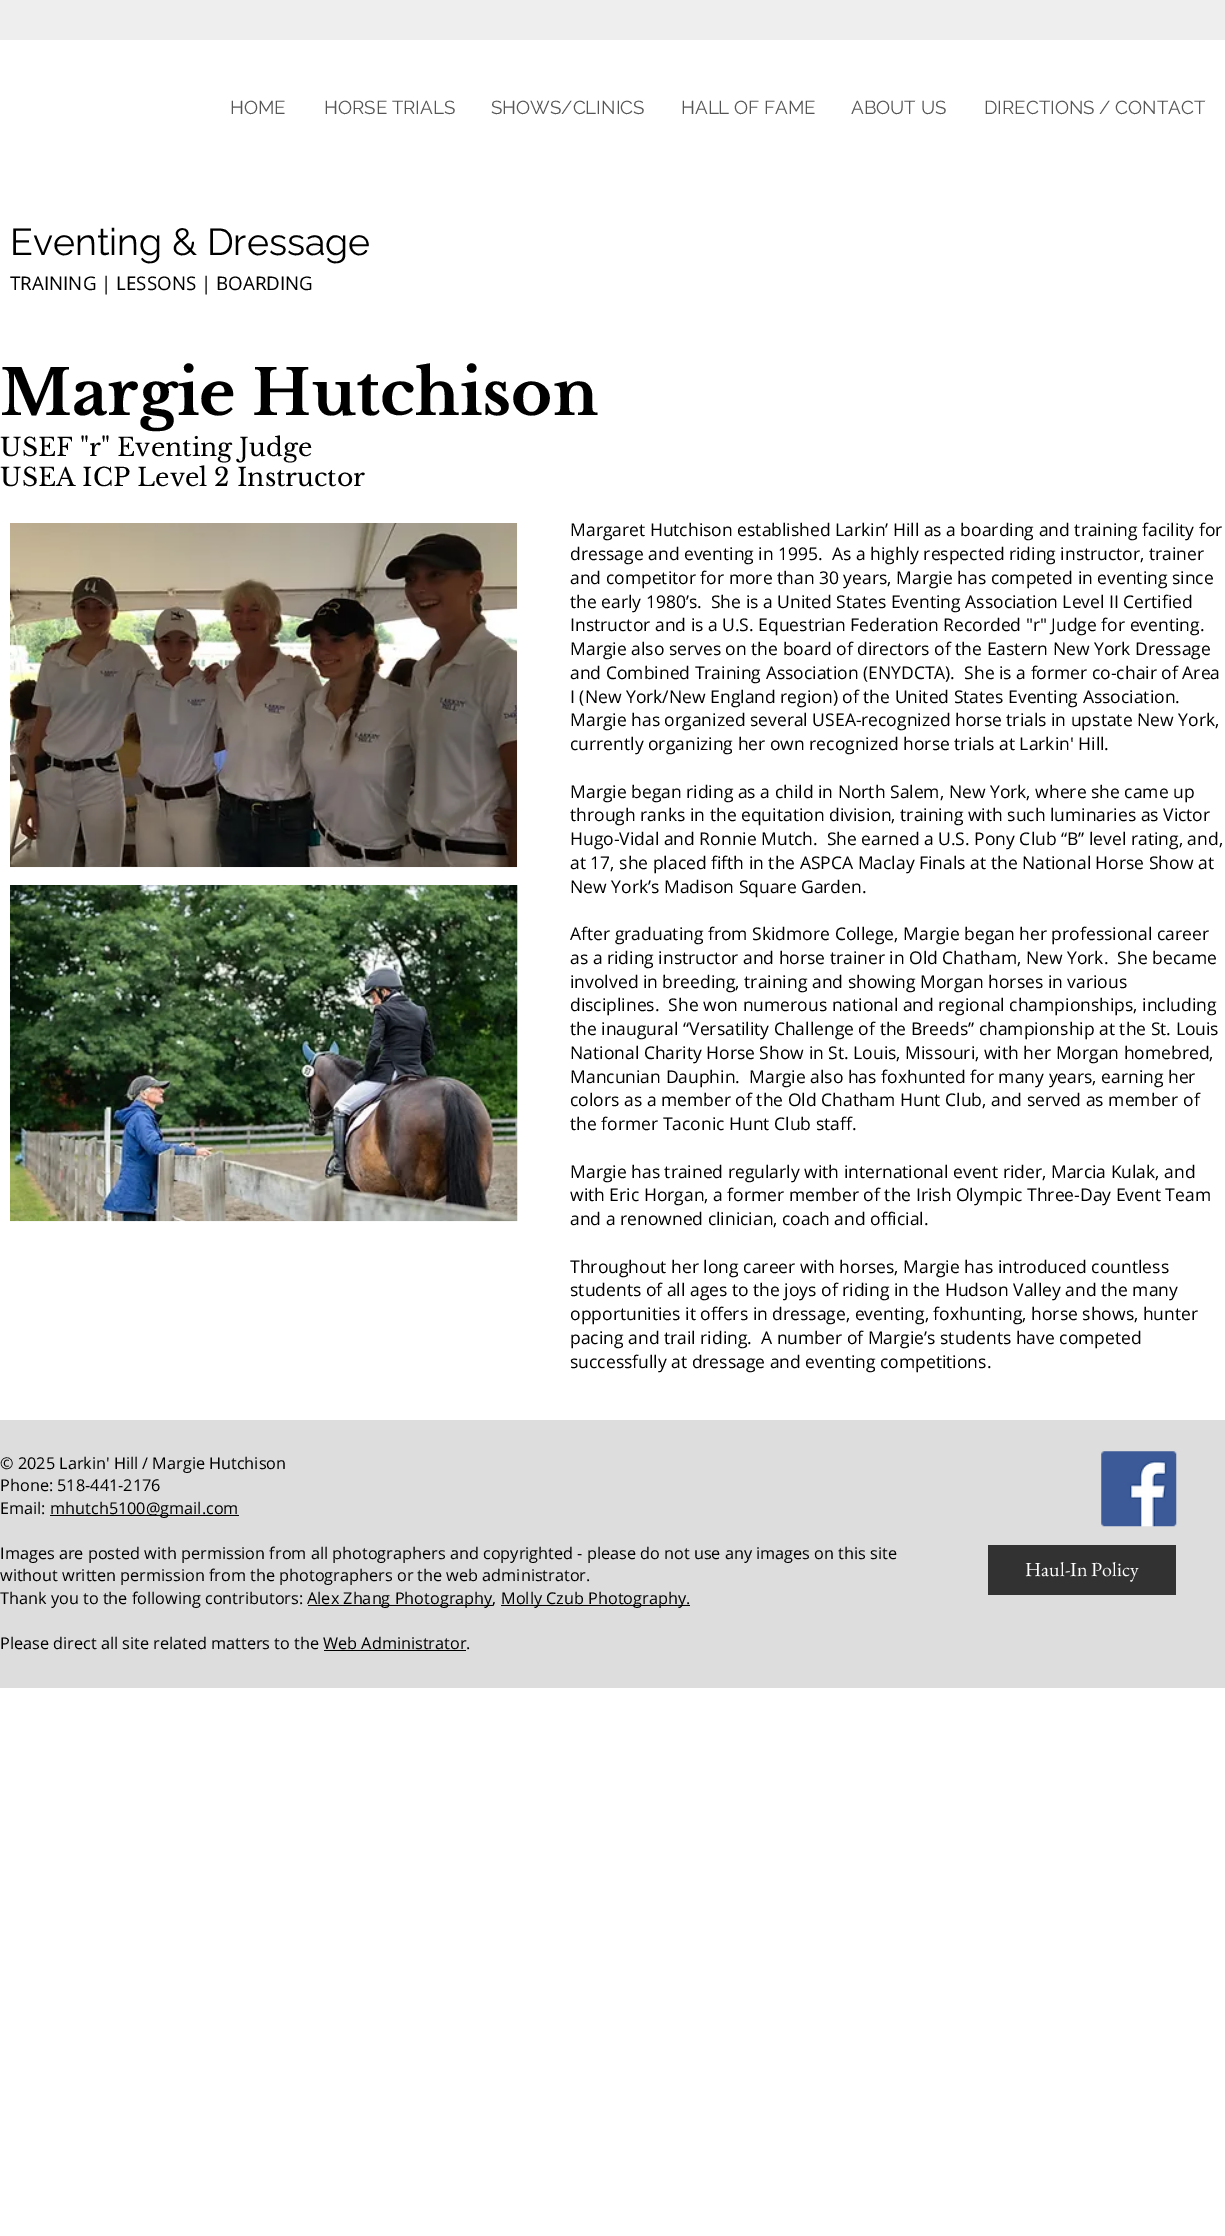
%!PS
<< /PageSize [1225 2236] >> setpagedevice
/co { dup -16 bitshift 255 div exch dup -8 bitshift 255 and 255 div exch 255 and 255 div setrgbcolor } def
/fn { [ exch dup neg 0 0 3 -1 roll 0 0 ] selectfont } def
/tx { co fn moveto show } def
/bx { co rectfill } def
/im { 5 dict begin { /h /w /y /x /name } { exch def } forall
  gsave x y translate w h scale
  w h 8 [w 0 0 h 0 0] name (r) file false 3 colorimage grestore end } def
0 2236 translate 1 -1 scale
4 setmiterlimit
0 0 1225 2236 16#FFFFFF bx
0 0 1225 40 16#EEEEEE bx
(media/1.raw) 10 523 508 345 im
(media/2.raw) 10 885 508 337 im
0 1420 1225 268 16#DDDDDD bx
50 1515 189 1 16#000000 bx
308 1605 185 1 16#000000 bx
501 1605 189 1 16#000000 bx
324 1650 142 1 16#000000 bx
(media/3.raw) 1101 1451 76 76 im
988 1545 188 50 16#323232 bx
(HOME) 230 114 /Raleway-Regular 18.75 16#555555 tx
(HORSE TRIALS) 324 114 /Raleway-Regular 18.75 16#555555 tx
(SHOWS/CLINICS) 491 114 /Raleway-Regular 18.75 16#555555 tx
(HALL OF FAME) 681 114 /Raleway-Regular 18.75 16#555555 tx
(ABOUT US) 851 114 /Raleway-Regular 18.75 16#555555 tx
(DIRECTIONS / CONTACT) 984 114 /Raleway-Regular 18.75 16#555555 tx
(Eventing & Dressage) 10 255 /Raleway-Regular 37.5 16#000000 tx
(TRAINING | LESSONS | BOARDING) 10 290 /OpenSans-Regular 18.75 16#000000 tx
(Margie Hutchison) 0 415 /LibreBaskerville-Bold 62.5 16#000000 tx
(USEF "r" Eventing Judge) 0 456 /LibreBaskerville-Regular 25 16#000000 tx
(USEA ICP Level 2 Instructor) 0 486 /LibreBaskerville-Regular 25 16#000000 tx
(Margaret Hutchison established Larkin’ Hill as a boarding and training facility for) 570 536 /OpenSans-Regular 17.5 16#000000 tx
(dressage and eventing in 1995.  As a highly respected riding instructor, trainer) 570 560 /OpenSans-Regular 17.5 16#000000 tx
(and competitor for more than 30 years, Margie has competed in eventing since) 570 584 /OpenSans-Regular 17.5 16#000000 tx
(the early 1980’s.  She is a United States Eventing Association Level II Certified) 570 608 /OpenSans-Regular 17.5 16#000000 tx
(Instructor and is a U.S. Equestrian Federation Recorded "r" Judge for eventing.) 570 631 /OpenSans-Regular 17.5 16#000000 tx
(Margie also serves on the board of directors of the Eastern New York Dressage) 570 655 /OpenSans-Regular 17.5 16#000000 tx
(and Combined Training Association \(ENYDCTA\).  She is a former co-chair of Area) 570 679 /OpenSans-Regular 17.5 16#000000 tx
(I \(New York/New England region\) of the United States Eventing Association.) 570 703 /OpenSans-Regular 17.5 16#000000 tx
(Margie has organized several USEA-recognized horse trials in upstate New York,) 570 726 /OpenSans-Regular 17.5 16#000000 tx
(currently organizing her own recognized horse trials at Larkin' Hill.) 570 750 /OpenSans-Regular 17.5 16#000000 tx
(Margie began riding as a child in North Salem, New York, where she came up) 570 798 /OpenSans-Regular 17.5 16#000000 tx
(through ranks in the equitation division, training with such luminaries as Victor) 570 821 /OpenSans-Regular 17.5 16#000000 tx
(Hugo-Vidal and Ronnie Mutch.  She earned a U.S. Pony Club “B” level rating, and,) 570 845 /OpenSans-Regular 17.5 16#000000 tx
(at 17, she placed fifth in the ASPCA Maclay Finals at the National Horse Show at) 570 869 /OpenSans-Regular 17.5 16#000000 tx
(New York’s Madison Square Garden.) 570 893 /OpenSans-Regular 17.5 16#000000 tx
(After graduating from Skidmore College, Margie began her professional career) 570 940 /OpenSans-Regular 17.5 16#000000 tx
(as a riding instructor and horse trainer in Old Chatham, New York.  She became) 570 964 /OpenSans-Regular 17.5 16#000000 tx
(involved in breeding, training and showing Morgan horses in various) 570 988 /OpenSans-Regular 17.5 16#000000 tx
(disciplines.  She won numerous national and regional championships, including) 570 1011 /OpenSans-Regular 17.5 16#000000 tx
(the inaugural “Versatility Challenge of the Breeds” championship at the St. Louis) 570 1035 /OpenSans-Regular 17.5 16#000000 tx
(National Charity Horse Show in St. Louis, Missouri, with her Morgan homebred,) 570 1059 /OpenSans-Regular 17.5 16#000000 tx
(Mancunian Dauphin.  Margie also has foxhunted for many years, earning her) 570 1083 /OpenSans-Regular 17.5 16#000000 tx
(colors as a member of the Old Chatham Hunt Club, and served as member of) 570 1106 /OpenSans-Regular 17.5 16#000000 tx
(the former Taconic Hunt Club staff.) 570 1130 /OpenSans-Regular 17.5 16#000000 tx
(Margie has trained regularly with international event rider, Marcia Kulak, and) 570 1178 /OpenSans-Regular 17.5 16#000000 tx
(with Eric Horgan, a former member of the Irish Olympic Three-Day Event Team) 570 1201 /OpenSans-Regular 17.5 16#000000 tx
(and a renowned clinician, coach and official.) 570 1225 /OpenSans-Regular 17.5 16#000000 tx
(Throughout her long career with horses, Margie has introduced countless) 570 1273 /OpenSans-Regular 17.5 16#000000 tx
(students of all ages to the joys of riding in the Hudson Valley and the many) 570 1296 /OpenSans-Regular 17.5 16#000000 tx
(opportunities it offers in dressage, eventing, foxhunting, horse shows, hunter) 570 1320 /OpenSans-Regular 17.5 16#000000 tx
(pacing and trail riding.  A number of Margie’s students have competed) 570 1344 /OpenSans-Regular 17.5 16#000000 tx
(successfully at dressage and eventing competitions.) 570 1368 /OpenSans-Regular 17.5 16#000000 tx
(© 2025 Larkin' Hill / Margie Hutchison) 0 1469 /OpenSans-Regular 16.25 16#000000 tx
(Phone: 518-441-2176) 0 1491 /OpenSans-Regular 16.25 16#000000 tx
(Email:) 0 1514 /OpenSans-Regular 16.25 16#000000 tx
(mhutch5100@gmail.com) 50 1514 /OpenSans-Regular 16.25 16#000000 tx
(Images are posted with permission from all photographers and copyrighted - please do not use any images on this site) 0 1559 /OpenSans-Regular 16.25 16#000000 tx
(without written permission from the photographers or the web administrator.) 0 1581 /OpenSans-Regular 16.25 16#000000 tx
(Thank you to the following contributors:) 0 1604 /OpenSans-Regular 16.25 16#000000 tx
(Alex Zhang Photography,) 307 1604 /OpenSans-Regular 16.25 16#000000 tx
(Molly Czub Photography.) 501 1604 /OpenSans-Regular 16.25 16#000000 tx
(Please direct all site related matters to the Web Administrator.) 0 1649 /OpenSans-Regular 16.25 16#000000 tx
(Haul-In Policy) 1025 1576 /EBGaramond-Regular 20 16#FFFFFF tx
showpage
